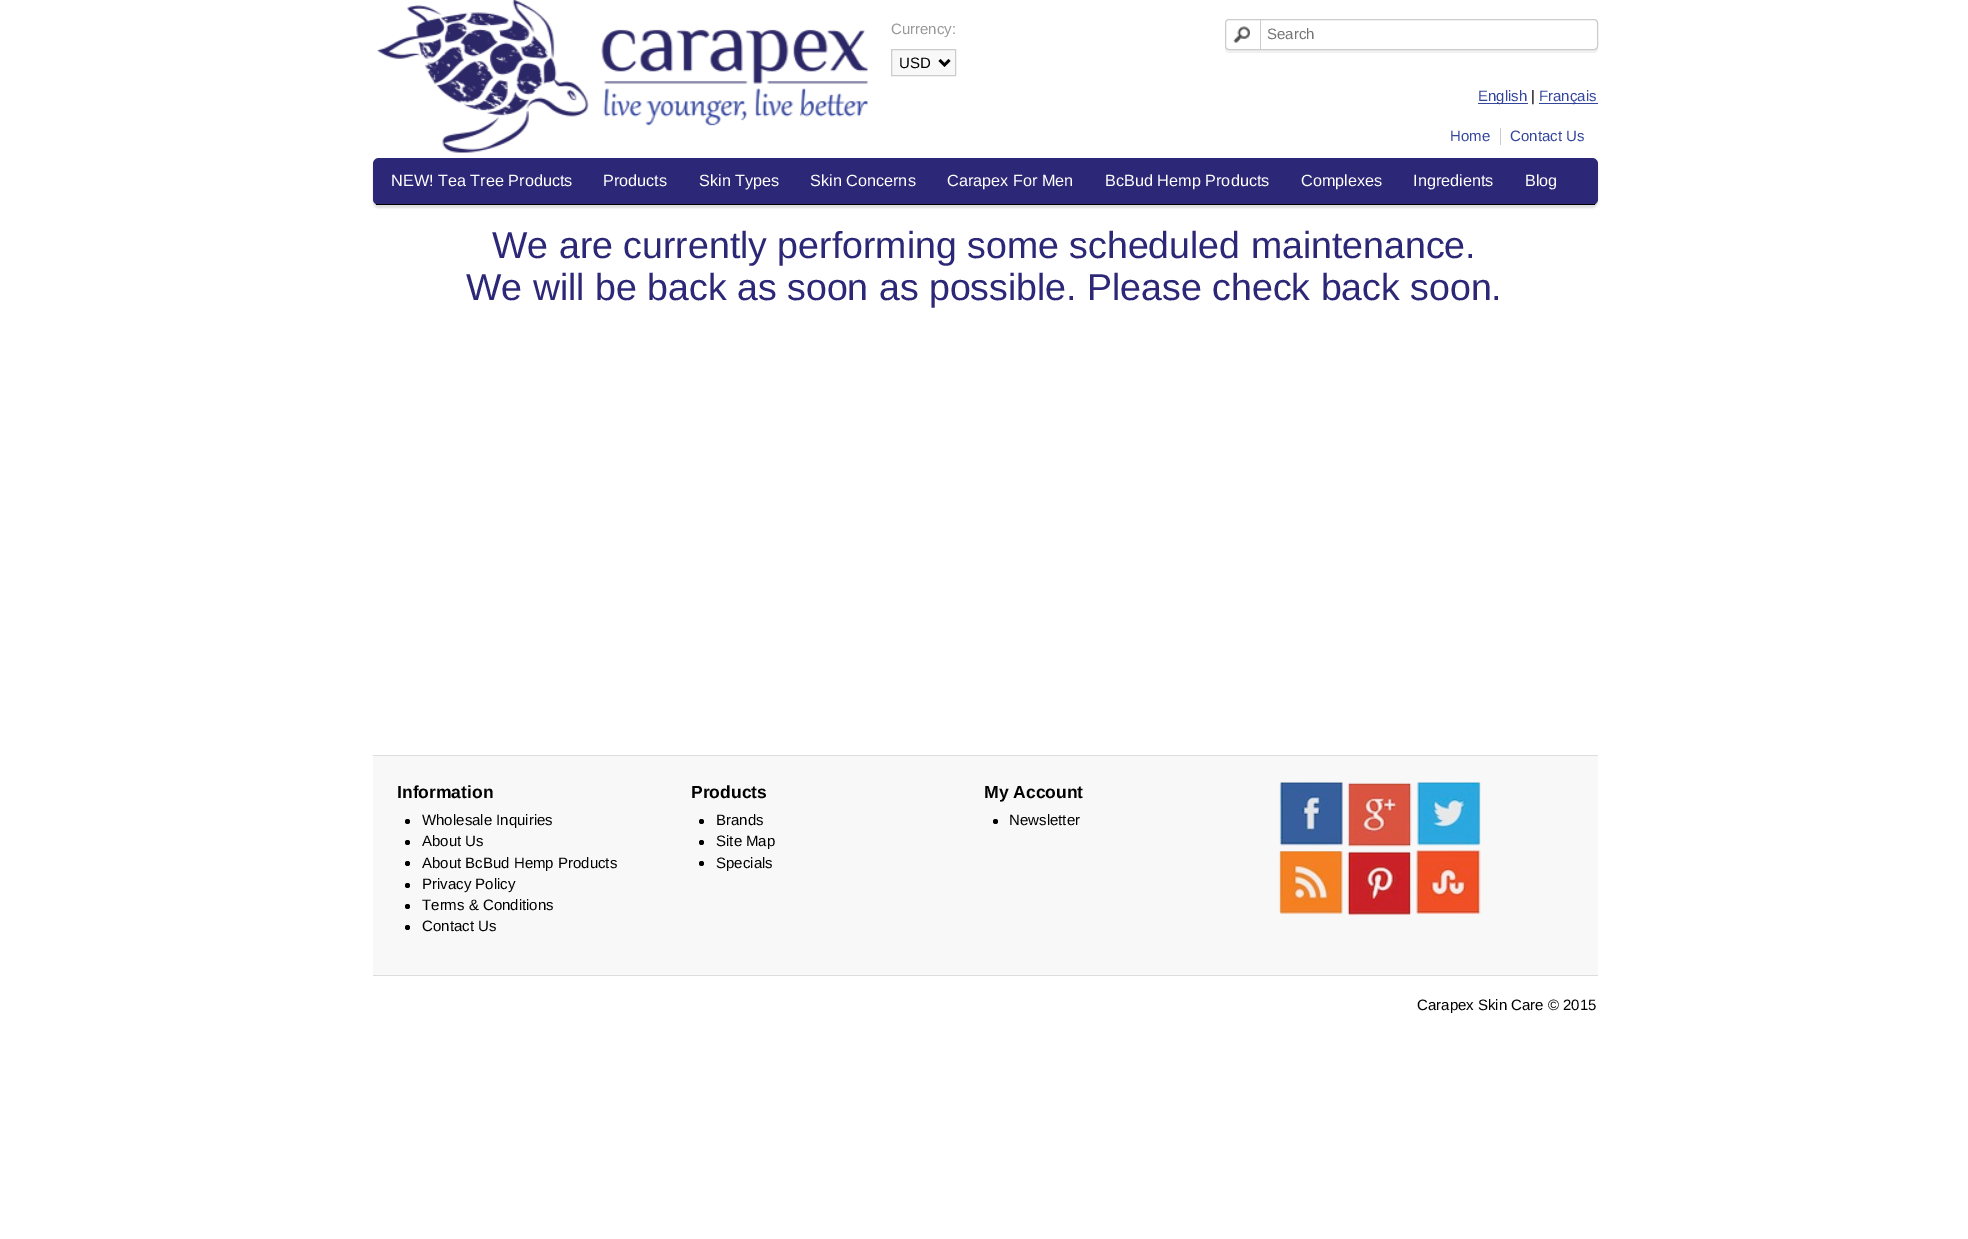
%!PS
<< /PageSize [1968 1239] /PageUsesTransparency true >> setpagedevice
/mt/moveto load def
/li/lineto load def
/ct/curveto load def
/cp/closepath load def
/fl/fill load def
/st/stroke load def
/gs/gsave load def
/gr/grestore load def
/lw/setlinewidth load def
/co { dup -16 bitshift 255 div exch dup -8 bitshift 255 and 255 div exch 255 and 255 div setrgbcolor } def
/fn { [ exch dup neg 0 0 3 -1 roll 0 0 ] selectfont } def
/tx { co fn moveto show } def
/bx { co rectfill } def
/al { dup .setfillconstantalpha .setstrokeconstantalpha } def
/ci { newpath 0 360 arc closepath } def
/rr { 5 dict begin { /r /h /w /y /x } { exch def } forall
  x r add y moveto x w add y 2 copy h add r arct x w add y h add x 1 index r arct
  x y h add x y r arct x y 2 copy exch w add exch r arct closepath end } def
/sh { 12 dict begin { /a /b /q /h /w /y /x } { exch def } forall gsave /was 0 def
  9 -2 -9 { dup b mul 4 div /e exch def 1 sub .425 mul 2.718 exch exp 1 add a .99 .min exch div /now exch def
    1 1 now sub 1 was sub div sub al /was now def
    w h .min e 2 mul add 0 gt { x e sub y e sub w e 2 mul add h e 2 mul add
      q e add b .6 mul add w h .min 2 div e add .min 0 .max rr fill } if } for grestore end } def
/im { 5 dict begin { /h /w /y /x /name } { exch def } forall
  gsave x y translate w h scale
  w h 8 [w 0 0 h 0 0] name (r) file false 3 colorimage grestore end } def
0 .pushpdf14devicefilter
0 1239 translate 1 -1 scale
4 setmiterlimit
0 0 1968 1239 16#FFFFFF bx
(media/1.raw) 377 0 491 153 im
16#F8F8F8 co
891.5 49.5 mt 955.5 49.5 li 955.5 75.5 li 891.5 75.5 li cp gs fl gr
16#CCCCCC co
st
16#000000 co
2.5 lw
939.5 60 mt 944.5 65 li 949.5 60 li st
16#F0F0F0 co
1225 46 mt 1225 49 li 1225 51 1227 53 1229 53 ct 1594 53 li 1596 53 1598 51 1598 49 ct 1598 25 li 1598 23 li 1598 46 li 1598 48 1596 50 1594 50 ct 1229 50 li 1227 50 1225 48 1225 46 ct cp fl
16#FFFFFF co
1225.5 19.5 372 30 3.5 rr gs fl gr
16#CCCCCC co
1 lw
st
(media/2.raw) 1233 26 17 17 im
1260 19 1 30 16#CCCCCC bx
1478 103 50 1 16#34459C bx
1539 103 59 1 16#34459C bx
1500 128 1 17 16#CCCCCC bx
16#DDDDDD co
373 160 1225 48 6 1 1 sh
16#2C2776 co
373 158 1225 47 6 rr fl
376 204 1219 1 16#000000 bx
373 756 1225 219 16#F8F8F8 bx
373 755 1225 1 16#DBDEE1 bx
373 975 1225 1 16#DBDEE1 bx
16#000000 co
407.5 821.5 2.5 ci fl
407.5 842.5 2.5 ci fl
407.5 863.5 2.5 ci fl
407.5 885.5 2.5 ci fl
407.5 906.5 2.5 ci fl
407.5 927.5 2.5 ci fl
701.5 821.5 2.5 ci fl
701.5 842.5 2.5 ci fl
701.5 863.5 2.5 ci fl
995.5 821.5 2.5 ci fl
(media/3.raw) 1279 782 64 64 im
(media/4.raw) 1347 782 65 65 im
(media/5.raw) 1416 782 65 64 im
(media/6.raw) 1278 851 65 63 im
(media/7.raw) 1347 851 65 64 im
(media/8.raw) 1416 850 65 64 im
(Currency:) 891 34 /LiberationSans-Regular 15 16#999999 tx
(USD) 899 68 /LiberationSans-Regular 15 16#000000 tx
(Search) 1267 39 /LiberationSans-Regular 15 16#757575 tx
(English) 1478 101 /LiberationSans-Regular 15 16#34459C tx
(|) 1531 101 /LiberationSans-Regular 15 16#000000 tx
(Français) 1539 101 /LiberationSans-Regular 15 16#34459C tx
(Home) 1450 141 /LiberationSans-Regular 15 16#34459C tx
(Contact Us) 1510 141 /LiberationSans-Regular 15 16#34459C tx
(NEW! Tea Tree Products) 391 186 /LiberationSans-Regular 16.25 16#FFFFFF tx
(Products) 603 186 /LiberationSans-Regular 16.25 16#FFFFFF tx
(Skin Types) 699 186 /LiberationSans-Regular 16.25 16#FFFFFF tx
(Skin Concerns) 810 186 /LiberationSans-Regular 16.25 16#FFFFFF tx
(Carapex For Men) 947 186 /LiberationSans-Regular 16.25 16#FFFFFF tx
(BcBud Hemp Products) 1105 186 /LiberationSans-Regular 16.25 16#FFFFFF tx
(Complexes) 1301 186 /LiberationSans-Regular 16.25 16#FFFFFF tx
(Ingredients) 1413 186 /LiberationSans-Regular 16.25 16#FFFFFF tx
(Blog) 1525 186 /LiberationSans-Regular 16.25 16#FFFFFF tx
(We are currently performing some scheduled maintenance.) 492 258 /LiberationSans-Regular 37.5 16#2C2776 tx
(We will be back as soon as possible. Please check back soon.) 466 300 /LiberationSans-Regular 37.5 16#2C2776 tx
(Information) 397 798 /LiberationSans-Bold 17.5 16#000000 tx
(Wholesale Inquiries) 422 825 /LiberationSans-Regular 15 16#000000 tx
(About Us) 422 846 /LiberationSans-Regular 15 16#000000 tx
(About BcBud Hemp Products) 422 868 /LiberationSans-Regular 15 16#000000 tx
(Privacy Policy) 422 889 /LiberationSans-Regular 15 16#000000 tx
(Terms & Conditions) 422 910 /LiberationSans-Regular 15 16#000000 tx
(Contact Us) 422 931 /LiberationSans-Regular 15 16#000000 tx
(Products) 691 798 /LiberationSans-Bold 17.5 16#000000 tx
(Brands) 716 825 /LiberationSans-Regular 15 16#000000 tx
(Site Map) 716 846 /LiberationSans-Regular 15 16#000000 tx
(Specials) 716 868 /LiberationSans-Regular 15 16#000000 tx
(My Account) 984 798 /LiberationSans-Bold 17.5 16#000000 tx
(Newsletter) 1009 825 /LiberationSans-Regular 15 16#000000 tx
(Carapex Skin Care © 2015) 1417 1010 /LiberationSans-Regular 15 16#000000 tx
.poppdf14devicefilter showpage
